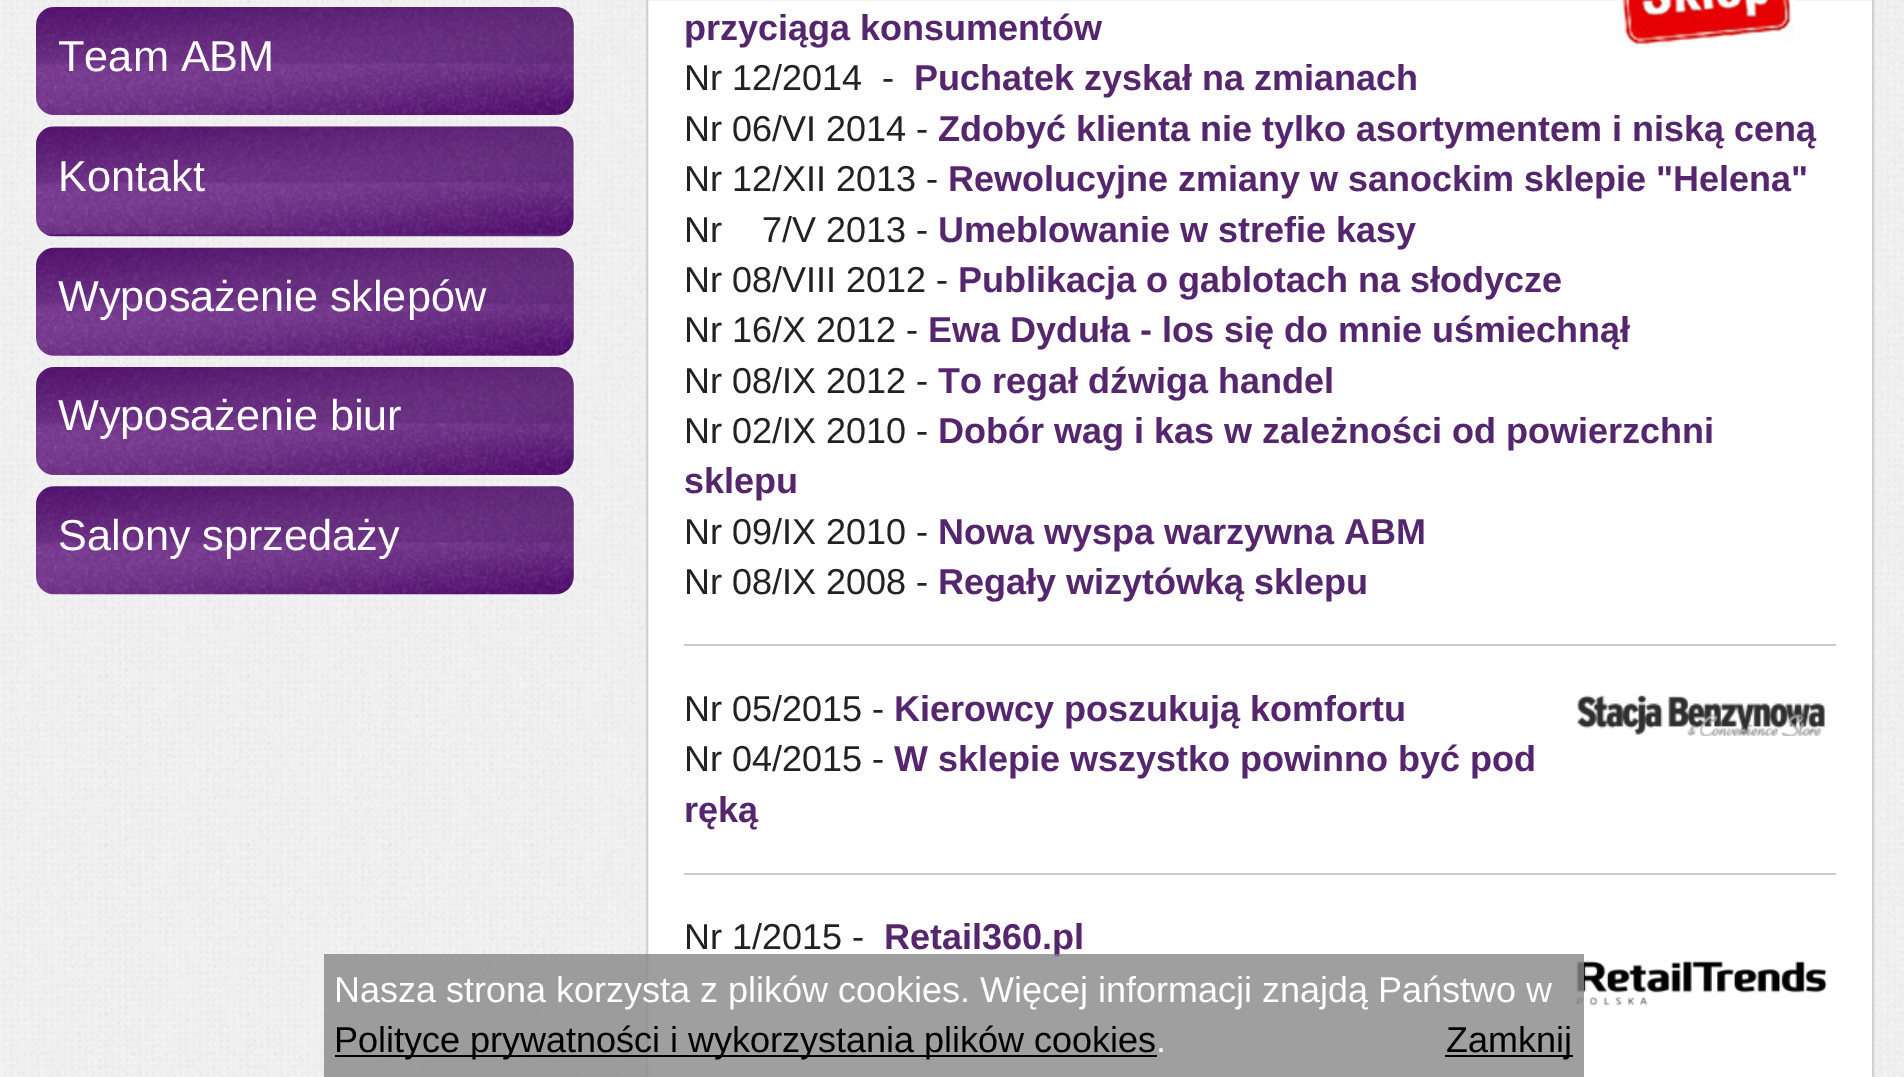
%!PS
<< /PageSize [1904 1077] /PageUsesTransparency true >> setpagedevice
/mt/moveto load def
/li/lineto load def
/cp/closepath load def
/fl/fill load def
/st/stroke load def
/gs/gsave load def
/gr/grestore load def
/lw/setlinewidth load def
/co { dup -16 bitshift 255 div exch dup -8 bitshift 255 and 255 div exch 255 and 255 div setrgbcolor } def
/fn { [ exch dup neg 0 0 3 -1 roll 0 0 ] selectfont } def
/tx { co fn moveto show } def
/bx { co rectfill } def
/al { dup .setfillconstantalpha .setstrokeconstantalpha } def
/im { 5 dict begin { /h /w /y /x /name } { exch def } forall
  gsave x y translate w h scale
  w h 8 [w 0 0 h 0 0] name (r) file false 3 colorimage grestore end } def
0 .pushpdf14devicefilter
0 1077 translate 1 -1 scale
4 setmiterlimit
0 0 1904 1077 16#FFFFFF bx
(media/1.raw) 0 0 1904 1077 im
(media/2.raw) 36 7 538 108 im
(media/3.raw) 36 126 538 111 im
(media/4.raw) 36 247 538 109 im
(media/5.raw) 36 367 538 108 im
(media/6.raw) 35 486 539 109 im
647 -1 mt 1873 -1 li 1873 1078 li 647 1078 li cp gs fl gr
16#D1D1D1 co
2 lw
st
(media/7.raw) 1618 0 177 47 im
684 644 1152 2 16#CCCCCC bx
(media/8.raw) 1577 695 248 41 im
684 873 1152 2 16#CCCCCC bx
(media/9.raw) 1576 960 251 46 im
(Team ABM) 58 71 /LiberationSans-Regular 43.25 16#FFFFFF tx
(Kontakt) 58 191 /LiberationSans-Regular 43.25 16#FFFFFF tx
(Wyposażenie sklepów) 58 311 /LiberationSans-Regular 43.25 16#FFFFFF tx
(Wyposażenie biur) 58 430 /LiberationSans-Regular 43.25 16#FFFFFF tx
(Salony sprzedaży) 58 550 /LiberationSans-Regular 43.25 16#FFFFFF tx
(przyciąga konsumentów) 684 40 /LiberationSans-Bold 36 16#55266D tx
(Nr 12/2014) 684 90 /LiberationSans-Regular 36 16#222222 tx
(-) 882 90 /LiberationSans-Regular 36 16#222222 tx
(Puchatek zyskał na zmianach) 914 90 /LiberationSans-Bold 36 16#55266D tx
(Nr 06/VI 2014 -) 684 141 /LiberationSans-Regular 36 16#222222 tx
(Zdobyć klienta nie tylko asortymentem i niską ceną) 938 141 /LiberationSans-Bold 36 16#55266D tx
(Nr 12/XII 2013 -) 684 191 /LiberationSans-Regular 36 16#222222 tx
(Rewolucyjne zmiany w sanockim sklepie "Helena") 948 191 /LiberationSans-Bold 36 16#55266D tx
(Nr) 684 242 /LiberationSans-Regular 36 16#222222 tx
(7/V 2013 -) 762 242 /LiberationSans-Regular 36 16#222222 tx
(Umeblowanie w strefie kasy) 938 242 /LiberationSans-Bold 36 16#55266D tx
(Nr 08/VIII 2012 -) 684 292 /LiberationSans-Regular 36 16#222222 tx
(Publikacja o gablotach na słodycze) 958 292 /LiberationSans-Bold 36 16#55266D tx
(Nr 16/X 2012 -) 684 342 /LiberationSans-Regular 36 16#222222 tx
(Ewa Dyduła - los się do mnie uśmiechnął) 928 342 /LiberationSans-Bold 36 16#55266D tx
(Nr 08/IX 2012 -) 684 393 /LiberationSans-Regular 36 16#222222 tx
(To regał dźwiga handel) 938 393 /LiberationSans-Bold 36 16#55266D tx
(Nr 02/IX 2010 -) 684 443 /LiberationSans-Regular 36 16#222222 tx
(Dobór wag i kas w zależności od powierzchni) 938 443 /LiberationSans-Bold 36 16#55266D tx
(sklepu) 684 493 /LiberationSans-Bold 36 16#55266D tx
(Nr 09/IX 2010 -) 684 544 /LiberationSans-Regular 36 16#222222 tx
(Nowa wyspa warzywna ABM) 938 544 /LiberationSans-Bold 36 16#55266D tx
(Nr 08/IX 2008 -) 684 594 /LiberationSans-Regular 36 16#222222 tx
(Regały wizytówką sklepu) 938 594 /LiberationSans-Bold 36 16#55266D tx
(Nr 05/2015 -) 684 721 /LiberationSans-Regular 36 16#222222 tx
(Kierowcy poszukują komfortu) 894 721 /LiberationSans-Bold 36 16#55266D tx
(Nr 04/2015 -) 684 771 /LiberationSans-Regular 36 16#222222 tx
(W sklepie wszystko powinno być pod) 894 771 /LiberationSans-Bold 36 16#55266D tx
(ręką) 684 822 /LiberationSans-Bold 36 16#55266D tx
(Nr 1/2015 -) 684 949 /LiberationSans-Regular 36 16#222222 tx
(Retail360.pl) 884 949 /LiberationSans-Bold 36 16#55266D tx
0.8 al
324 954 1260 123 16#878787 bx
1 al
(Nasza strona korzysta z plików cookies. Więcej informacji znajdą Państwo w) 334 1002 /LiberationSans-Regular 36 16#FFFFFF tx
335 1055 822 2 16#000000 bx
(Polityce prywatności i wykorzystania plików cookies) 334 1052 /LiberationSans-Regular 36 16#000000 tx
(.) 1156 1052 /LiberationSans-Regular 36 16#FFFFFF tx
1445 1055 128 2 16#000000 bx
(Zamknij) 1446 1052 /LiberationSans-Regular 36 16#000000 tx
.poppdf14devicefilter showpage
